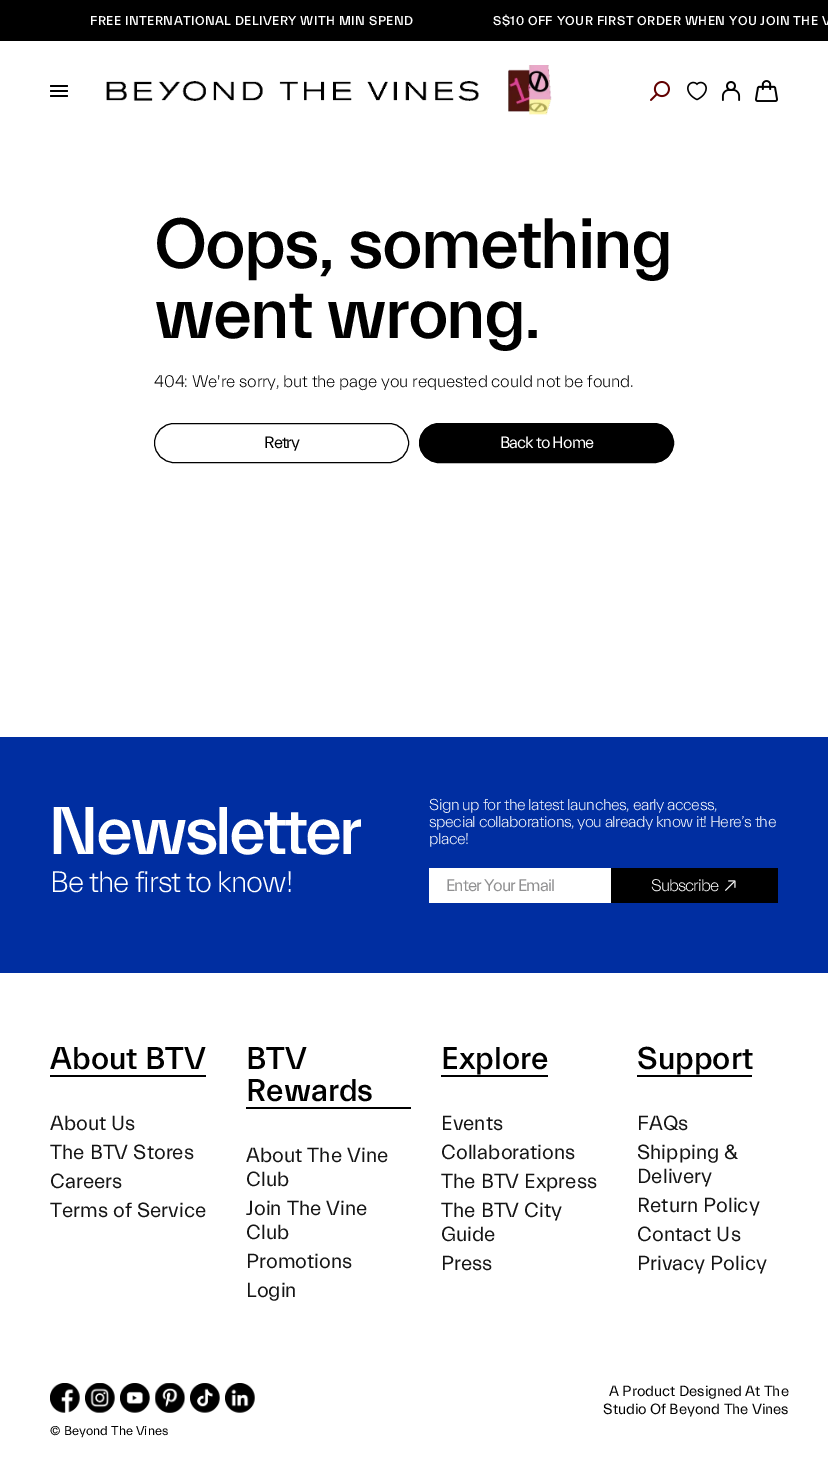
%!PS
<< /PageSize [828 1462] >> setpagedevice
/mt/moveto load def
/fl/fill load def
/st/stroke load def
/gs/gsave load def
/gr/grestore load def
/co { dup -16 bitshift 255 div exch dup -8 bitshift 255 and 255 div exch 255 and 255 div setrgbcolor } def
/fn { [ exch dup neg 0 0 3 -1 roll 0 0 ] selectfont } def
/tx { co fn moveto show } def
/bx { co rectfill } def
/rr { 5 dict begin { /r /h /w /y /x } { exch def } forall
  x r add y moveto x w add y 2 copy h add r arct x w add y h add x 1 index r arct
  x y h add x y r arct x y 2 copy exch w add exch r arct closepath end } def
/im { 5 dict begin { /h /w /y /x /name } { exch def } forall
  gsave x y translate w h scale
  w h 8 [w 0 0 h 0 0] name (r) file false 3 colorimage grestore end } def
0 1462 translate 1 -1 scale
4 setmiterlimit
0 0 828 1462 16#FFFFFF bx
0 0 828 41 16#000000 bx
50 85 18 2 1 rr fl
50 90 18 2 1 rr fl
50 95 18 2 1 rr fl
(media/1.raw) 106 65 446 50 im
(media/2.raw) 650 81 20 20 im
(media/3.raw) 687 81 20 20 im
(media/4.raw) 721 81 20 20 im
(media/5.raw) 755 80 23 22 im
154.5 423.5 254 39 19.5 rr st
419.5 423.5 254 39 19.5 rr gs fl gr
st
0 737 828 236 16#002EA1 bx
429 868 182 35 16#FFFFFF bx
611 868 167 35 16#000000 bx
(media/6.raw) 725 880 11 11 im
50 1075 156 2 16#000000 bx
246 1107 165 2 16#000000 bx
441 1075 107 2 16#000000 bx
637 1075 115 2 16#000000 bx
(media/7.raw) 50 1383 30 30 im
(media/8.raw) 85 1383 30 30 im
(media/9.raw) 120 1383 30 30 im
(media/10.raw) 155 1383 30 30 im
(media/11.raw) 190 1383 30 30 im
(media/12.raw) 225 1383 30 30 im
/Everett-Medium 13 fn
16#FFFFFF co
90 25 mt .4 0 (FREE INTERNATIONAL DELIVERY WITH MIN SPEND) ashow
493 25 mt .4 0 (S$10 OFF YOUR FIRST ORDER WHEN YOU JOIN THE V) ashow
/Everett-Medium 72 fn
16#000000 co
154 268 mt -2 0 (Oops, something) ashow
154 338 mt -2 0 (went wrong.) ashow
/Everett-Light 17 fn
154 387 mt -.4 0 32 -.1 0 (404: We're sorry, but the page you requested could not be found.) awidthshow
/Everett-Regular 16.75 fn
264 448 mt -1 0 (Retry) ashow
16#FFFFFF co
500 448 mt -1 0 (Back to Home) ashow
/Everett-Medium 68 fn
48 854 mt -3 0 (Newsletter) ashow
/Everett-Light 30 fn
50 892 mt -.5 0 32 -1 0 (Be the first to know!) awidthshow
/Everett-Light 16 fn
429 810 mt -.25 0 32 -.5 0 (Sign up for the latest launches, early access,) awidthshow
429 827 mt -.5 0 32 -.5 0 (special collaborations, you already know it! Here’s the) awidthshow
429 844 mt -.5 0 (place!) ashow
/Everett-Regular 17 fn
16#909091 co
446 891 mt -1 0 (Enter Your Email) ashow
/Everett-Light 17 fn
16#FFFFFF co
651 891 mt -1 0 (Subscribe) ashow
(About BTV) 50 1069 /Everett-Medium 32 16#000000 tx
(About Us) 50 1130 /Everett-Regular 20.75 16#151515 tx
(The BTV Stores) 50 1159 /Everett-Regular 20.75 16#151515 tx
(Careers) 50 1188 /Everett-Regular 20.75 16#151515 tx
(Terms of Service) 50 1217 /Everett-Regular 20.75 16#151515 tx
(BTV) 246 1069 /Everett-Medium 32 16#000000 tx
(Rewards) 246 1101 /Everett-Medium 32 16#000000 tx
(About The Vine) 246 1162 /Everett-Regular 20.75 16#151515 tx
(Club) 246 1186 /Everett-Regular 20.75 16#151515 tx
(Join The Vine) 246 1215 /Everett-Regular 20.75 16#151515 tx
(Club) 246 1239 /Everett-Regular 20.75 16#151515 tx
(Promotions) 246 1268 /Everett-Regular 20.75 16#151515 tx
(Login) 246 1297 /Everett-Regular 20.75 16#151515 tx
(Explore) 441 1069 /Everett-Medium 32 16#000000 tx
(Events) 441 1130 /Everett-Regular 20.75 16#151515 tx
(Collaborations) 441 1159 /Everett-Regular 20.75 16#151515 tx
(The BTV Express) 441 1188 /Everett-Regular 20.75 16#151515 tx
(The BTV City) 441 1217 /Everett-Regular 20.75 16#151515 tx
(Guide) 441 1241 /Everett-Regular 20.75 16#151515 tx
(Press) 441 1270 /Everett-Regular 20.75 16#151515 tx
(Support) 637 1069 /Everett-Medium 32 16#000000 tx
(FAQs) 637 1130 /Everett-Regular 20.75 16#151515 tx
(Shipping &) 637 1159 /Everett-Regular 20.75 16#151515 tx
(Delivery) 637 1183 /Everett-Regular 20.75 16#151515 tx
(Return Policy) 637 1212 /Everett-Regular 20.75 16#151515 tx
(Contact Us) 637 1241 /Everett-Regular 20.75 16#151515 tx
(Privacy Policy) 637 1270 /Everett-Regular 20.75 16#151515 tx
/Everett-Regular 15 fn
16#000000 co
609 1396 mt -.4 0 32 (A Product Designed At The) widthshow
603 1414 mt -.5 0 32 (Studio Of Beyond The Vines) widthshow
(© Beyond The Vines) 50 1435 /Everett-Regular 13 16#000000 tx
showpage
